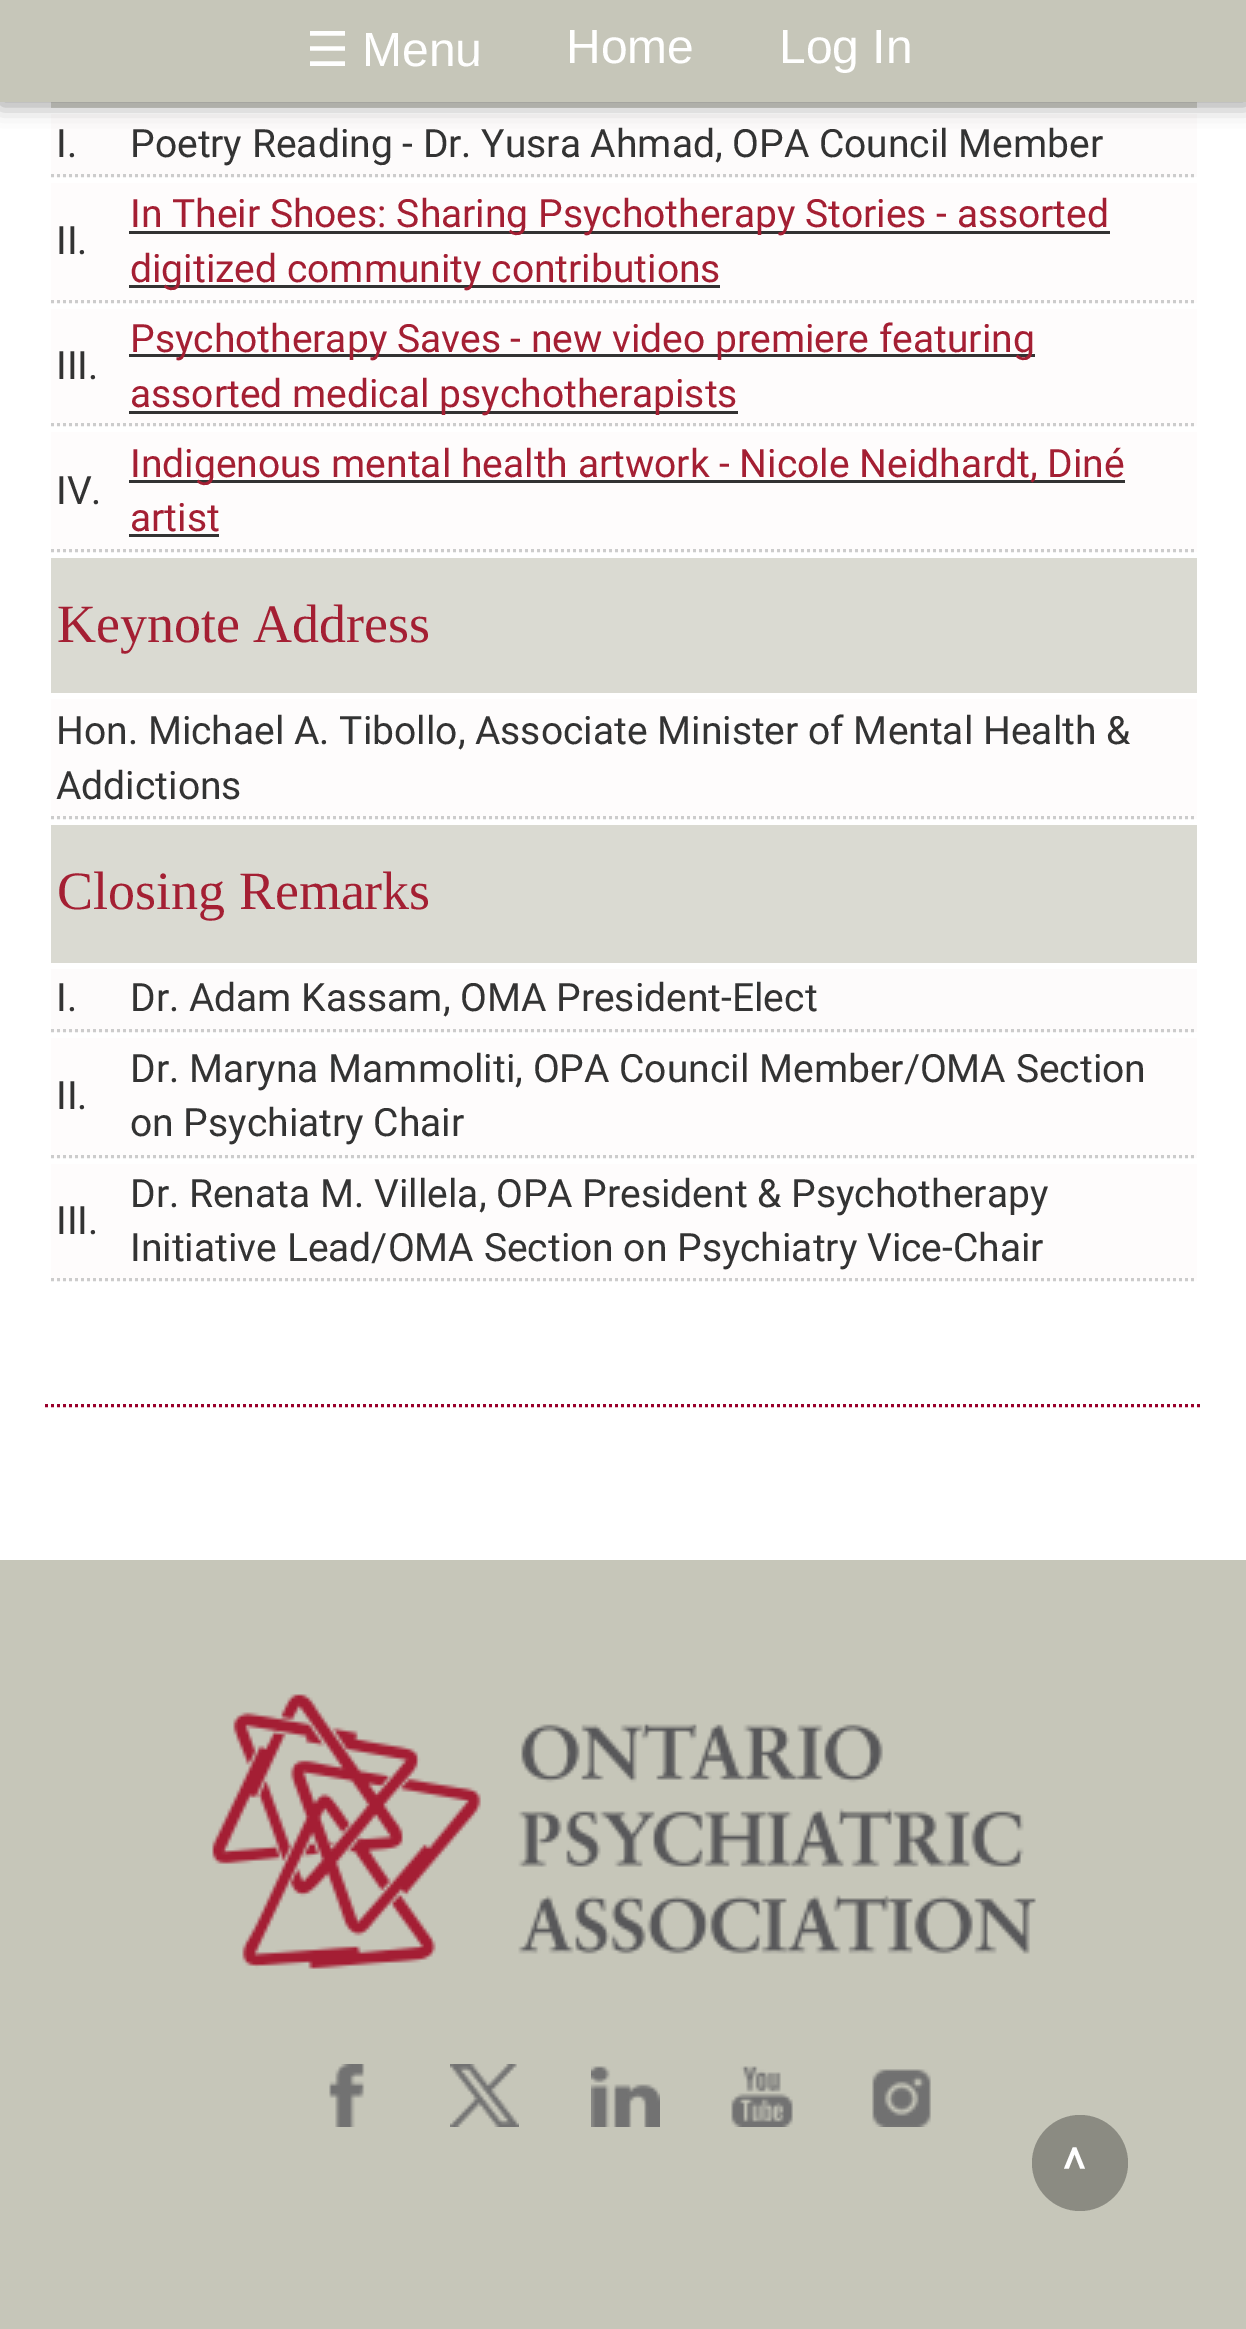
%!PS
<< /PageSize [1246 2329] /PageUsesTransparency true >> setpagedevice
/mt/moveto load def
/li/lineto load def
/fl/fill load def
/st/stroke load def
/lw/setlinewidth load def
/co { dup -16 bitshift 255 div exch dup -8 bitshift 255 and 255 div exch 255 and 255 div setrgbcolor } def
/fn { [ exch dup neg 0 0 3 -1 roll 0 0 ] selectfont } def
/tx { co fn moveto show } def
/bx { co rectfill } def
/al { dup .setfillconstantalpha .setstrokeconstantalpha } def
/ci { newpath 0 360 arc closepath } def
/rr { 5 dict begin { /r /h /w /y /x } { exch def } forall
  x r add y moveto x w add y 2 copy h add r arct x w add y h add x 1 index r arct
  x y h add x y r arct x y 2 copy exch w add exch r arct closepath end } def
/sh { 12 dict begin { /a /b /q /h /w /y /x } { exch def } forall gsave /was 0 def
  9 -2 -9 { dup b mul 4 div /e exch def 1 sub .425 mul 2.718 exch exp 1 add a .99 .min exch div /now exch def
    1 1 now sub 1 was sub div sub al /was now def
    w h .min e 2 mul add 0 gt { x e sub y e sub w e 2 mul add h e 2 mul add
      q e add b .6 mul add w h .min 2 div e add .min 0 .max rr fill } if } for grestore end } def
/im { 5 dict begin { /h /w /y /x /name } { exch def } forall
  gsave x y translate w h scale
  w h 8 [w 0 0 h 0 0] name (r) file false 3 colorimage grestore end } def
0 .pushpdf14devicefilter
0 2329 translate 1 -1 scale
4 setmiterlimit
0 0 1246 2329 16#FFFFFF bx
51 102 1146 6 16#DADAD2 bx
51 114 1146 63 16#FDFBFB bx
16#000000 co
0 3 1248 102 0 10.5 .4 sh
0 0 1246 102 16#C6C6B9 bx
16#CCCCCC co
3 lw
[3 3] 0 setdash
51 175.5 mt 1197 175.5 li st
51 183 1146 120 16#FEFCFC bx
16#CCCCCC co
51 301.5 mt 1197 301.5 li st
129 231 981 3 16#333333 bx
129 285 591 3 16#333333 bx
51 309 1146 117 16#FEFCFC bx
16#CCCCCC co
51 424.5 mt 1197 424.5 li st
129 354 906 3 16#333333 bx
129 411 609 3 16#333333 bx
51 432 1146 120 16#FEFCFC bx
16#CCCCCC co
51 550.5 mt 1197 550.5 li st
129 480 996 3 16#333333 bx
129 534 90 3 16#333333 bx
51 558 1146 135 16#DADAD2 bx
51 699 1146 120 16#FEFCFC bx
16#CCCCCC co
51 817.5 mt 1197 817.5 li st
51 825 1146 138 16#DADAD2 bx
51 969 1146 63 16#FDFBFB bx
16#CCCCCC co
51 1030.5 mt 1197 1030.5 li st
51 1038 1146 120 16#FEFCFC bx
16#CCCCCC co
51 1156.5 mt 1197 1156.5 li st
51 1164 1146 117 16#FEFCFC bx
16#CCCCCC co
51 1279.5 mt 1197 1279.5 li st
16#99002B co
45 1405.5 mt 1203 1405.5 li st
0 1560 1246 769 16#C6C6B9 bx
(media/1.raw) 212 1694 824 275 im
(media/2.raw) 329 2064 36 63 im
(media/3.raw) 450 2064 69 63 im
(media/4.raw) 591 2066 69 61 im
(media/5.raw) 731 2066 62 61 im
(media/6.raw) 872 2069 59 58 im
16#8B8B82 co
1080 2163 48 ci fl
(☰) 306 66 /DejaVuSans-Regular 48 16#FFFFFF tx
(Menu) 362 66 /LiberationSans-Regular 48 16#FFFFFF tx
(Home) 566 63 /LiberationSans-Regular 48 16#FFFFFF tx
(Log In) 779 63 /LiberationSans-Regular 48 16#FFFFFF tx
(I.) 56 157 /Roboto-Regular 39 16#333333 tx
(Poetry Reading - Dr. Yusra Ahmad, OPA Council Member) 130 157 /Roboto-Regular 39 16#333333 tx
(II.) 56 254 /Roboto-Regular 39 16#333333 tx
(In Their Shoes: Sharing Psychotherapy Stories - assorted) 130 227 /Roboto-Regular 39 16#A41F33 tx
(digitized community contributions) 130 282 /Roboto-Regular 39 16#A41F33 tx
(III.) 56 379 /Roboto-Regular 39 16#333333 tx
(Psychotherapy Saves - new video premiere featuring) 130 352 /Roboto-Regular 39 16#A41F33 tx
(assorted medical psychotherapists) 130 407 /Roboto-Regular 39 16#A41F33 tx
(IV.) 56 504 /Roboto-Regular 39 16#333333 tx
(Indigenous mental health artwork - Nicole Neidhardt, Diné) 130 477 /Roboto-Regular 39 16#A41F33 tx
(artist) 130 531 /Roboto-Regular 39 16#A41F33 tx
(Keynote Address) 57 642 /LiberationSerif-Regular 54 16#A41F33 tx
(Hon. Michael A. Tibollo, Associate Minister of Mental Health &) 56 744 /Roboto-Regular 39 16#333333 tx
(Addictions) 56 799 /Roboto-Regular 39 16#333333 tx
(Closing Remarks) 57 909 /LiberationSerif-Regular 54 16#A41F33 tx
(I.) 56 1011 /Roboto-Regular 39 16#333333 tx
(Dr. Adam Kassam, OMA President-Elect) 130 1011 /Roboto-Regular 39 16#333333 tx
(II.) 56 1109 /Roboto-Regular 39 16#333333 tx
(Dr. Maryna Mammoliti, OPA Council Member/OMA Section) 130 1082 /Roboto-Regular 39 16#333333 tx
(on Psychiatry Chair) 130 1136 /Roboto-Regular 39 16#333333 tx
(III.) 56 1234 /Roboto-Regular 39 16#333333 tx
(Dr. Renata M. Villela, OPA President & Psychotherapy) 130 1207 /Roboto-Regular 39 16#333333 tx
(Initiative Lead/OMA Section on Psychiatry Vice-Chair) 130 1261 /Roboto-Regular 39 16#333333 tx
(^) 1062 2190 /Roboto-Regular 60 16#FFFFFF tx
.poppdf14devicefilter showpage
